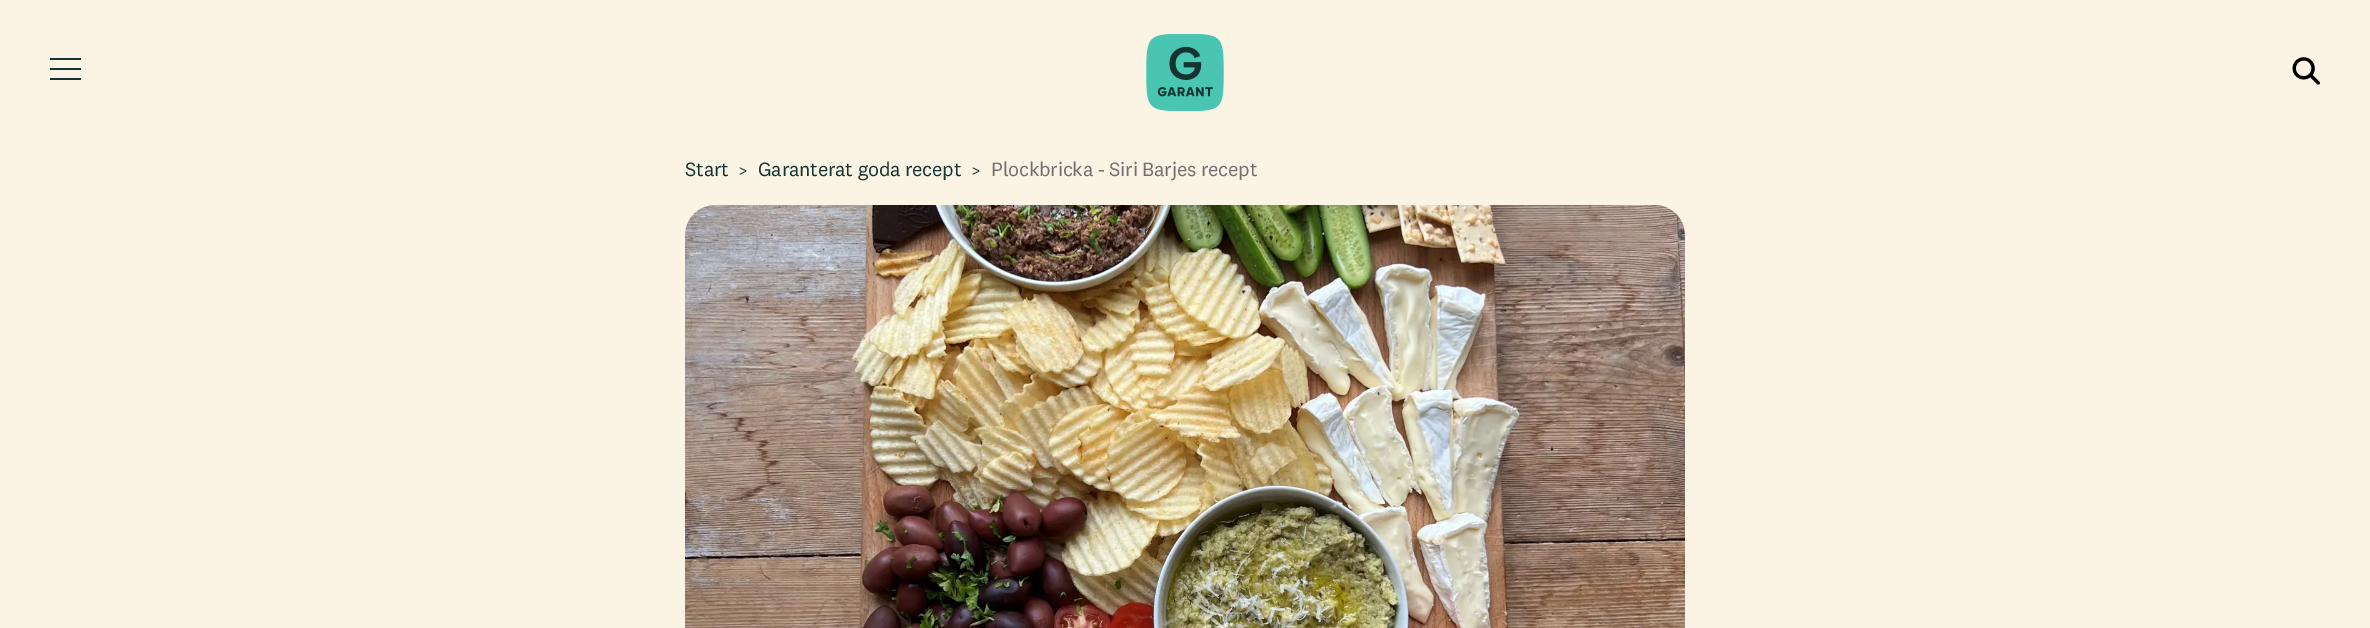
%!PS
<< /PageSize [2370 628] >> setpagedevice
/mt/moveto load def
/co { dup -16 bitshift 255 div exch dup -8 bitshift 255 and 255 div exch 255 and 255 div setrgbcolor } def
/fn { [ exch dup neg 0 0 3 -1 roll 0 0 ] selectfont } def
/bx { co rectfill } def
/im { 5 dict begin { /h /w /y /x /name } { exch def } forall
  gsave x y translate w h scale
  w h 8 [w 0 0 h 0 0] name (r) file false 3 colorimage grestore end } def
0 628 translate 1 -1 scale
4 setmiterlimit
0 0 2370 628 16#FBF3E4 bx
50 58 31 2 16#133430 bx
50 68 31 2 16#133430 bx
50 78 31 2 16#133430 bx
(media/1.raw) 1146 34 78 77 im
(media/2.raw) 2292 57 28 28 im
(media/3.raw) 685 205 1000 423 im
/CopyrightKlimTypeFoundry-Regular 20 fn
685 176 mt -.2 0 (Start) ashow
/CopyrightKlimTypeFoundry-Regular 16 fn
738 176 mt -.2 0 (>) ashow
/CopyrightKlimTypeFoundry-Regular 20 fn
758 176 mt -.2 0 (Garanterat goda recept) ashow
/CopyrightKlimTypeFoundry-Regular 16 fn
971 176 mt -.2 0 (>) ashow
/CopyrightKlimTypeFoundry-Regular 20 fn
16#706E6E co
991 176 mt -.2 0 (Plockbricka - Siri Barjes recept) ashow
showpage
